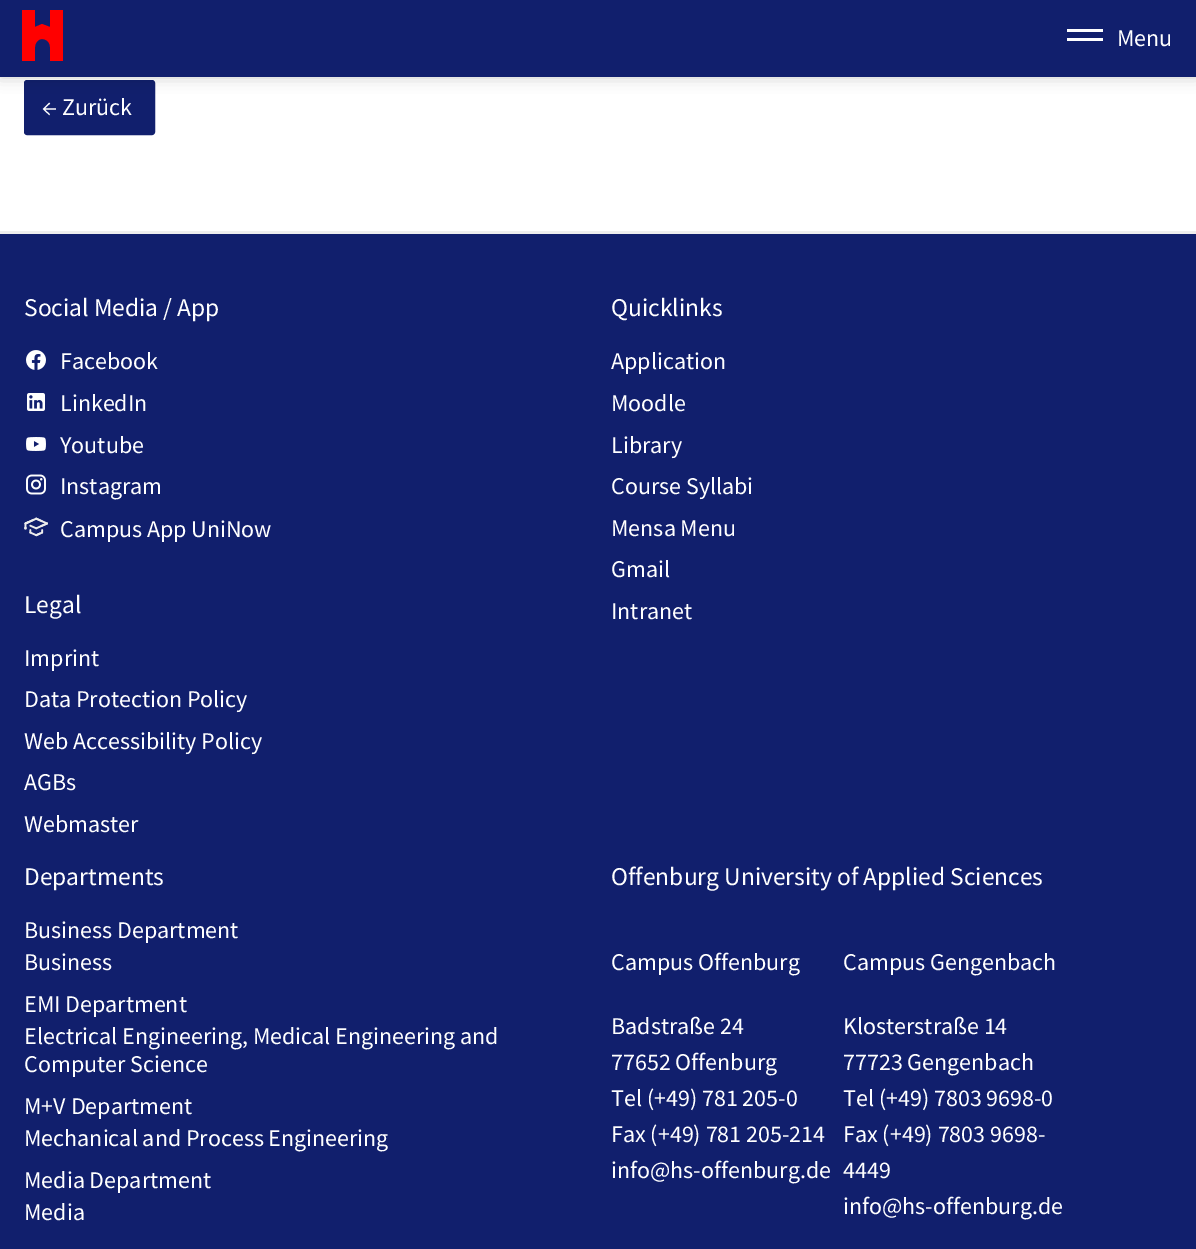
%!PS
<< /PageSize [1196 1249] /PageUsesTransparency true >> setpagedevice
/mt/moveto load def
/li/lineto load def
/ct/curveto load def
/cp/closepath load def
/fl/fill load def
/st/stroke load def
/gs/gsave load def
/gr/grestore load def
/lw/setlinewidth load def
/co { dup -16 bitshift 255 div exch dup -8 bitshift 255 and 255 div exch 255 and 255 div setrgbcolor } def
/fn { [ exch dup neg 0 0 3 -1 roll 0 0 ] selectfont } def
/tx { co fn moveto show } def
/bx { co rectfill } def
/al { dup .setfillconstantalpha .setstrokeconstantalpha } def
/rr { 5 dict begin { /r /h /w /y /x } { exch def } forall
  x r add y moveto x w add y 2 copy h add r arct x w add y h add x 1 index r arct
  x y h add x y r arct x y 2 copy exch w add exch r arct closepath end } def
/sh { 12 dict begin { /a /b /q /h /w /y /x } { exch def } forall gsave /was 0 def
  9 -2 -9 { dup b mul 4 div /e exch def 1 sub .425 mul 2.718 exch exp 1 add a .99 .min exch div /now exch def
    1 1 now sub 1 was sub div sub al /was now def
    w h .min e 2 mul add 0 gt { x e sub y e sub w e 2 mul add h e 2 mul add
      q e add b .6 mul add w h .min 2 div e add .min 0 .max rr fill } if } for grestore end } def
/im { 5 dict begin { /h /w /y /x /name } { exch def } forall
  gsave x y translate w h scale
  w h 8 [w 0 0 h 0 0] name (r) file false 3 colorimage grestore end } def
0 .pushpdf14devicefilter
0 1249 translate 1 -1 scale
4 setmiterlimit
0 0 1196 1249 16#FFFFFF bx
16#111F6D co
25 81 129 53 2 rr gs fl gr
2 lw
st
16#000000 co
0 0 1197 77 0 7.5 .2 sh
0 0 1196 77 16#111F6D bx
16#FF0000 co
50 10 mt 50 27 li 42 24 li 35 27 li 35 10 li 22 10 li 22 61 li 35 61 li 35 47 li 35 43 38 39 42 39 ct 47 39 50 43 50 47 ct 50 61 li 63 61 li 63 10 li cp fl
1067 29 36 3 16#FFFFFF bx
1067 38 36 3 16#FFFFFF bx
0 234 1196 1015 16#111F6D bx
0 231 1196 3 16#EEEEEE bx
(media/1.raw) 26 350 20 20 im
(media/2.raw) 27 393 18 18 im
(media/3.raw) 26 437 20 14 im
(media/4.raw) 26 474 20 21 im
(media/5.raw) 24 517 24 20 im
(Menu) 1117 46 /SourceSansPro-Regular 24 16#FFFFFF tx
(← Zurück) 42 115 /SourceSansPro-Regular 24 16#FFFFFF tx
(Social Media / App) 24 316 /SourceSansPro-Regular 25.5 16#FFFFFF tx
(Facebook) 60 369 /SourceSansPro-Regular 24 16#FFFFFF tx
(LinkedIn) 60 411 /SourceSansPro-Regular 24 16#FFFFFF tx
(Youtube) 60 453 /SourceSansPro-Regular 24 16#FFFFFF tx
(Instagram) 60 494 /SourceSansPro-Regular 24 16#FFFFFF tx
(Campus App UniNow) 60 537 /SourceSansPro-Regular 24 16#FFFFFF tx
(Legal) 24 613 /SourceSansPro-Regular 25.5 16#FFFFFF tx
(Imprint) 24 666 /SourceSansPro-Regular 24 16#FFFFFF tx
(Data Protection Policy) 24 707 /SourceSansPro-Regular 24 16#FFFFFF tx
(Web Accessibility Policy) 24 749 /SourceSansPro-Regular 24 16#FFFFFF tx
(AGBs) 24 790 /SourceSansPro-Regular 24 16#FFFFFF tx
(Webmaster) 24 832 /SourceSansPro-Regular 24 16#FFFFFF tx
(Quicklinks) 611 316 /SourceSansPro-Regular 25.5 16#FFFFFF tx
(Application) 611 369 /SourceSansPro-Regular 24 16#FFFFFF tx
(Moodle) 611 411 /SourceSansPro-Regular 24 16#FFFFFF tx
(Library) 611 453 /SourceSansPro-Regular 24 16#FFFFFF tx
(Course Syllabi) 611 494 /SourceSansPro-Regular 24 16#FFFFFF tx
(Mensa Menu) 611 536 /SourceSansPro-Regular 24 16#FFFFFF tx
(Gmail) 611 577 /SourceSansPro-Regular 24 16#FFFFFF tx
(Intranet) 611 619 /SourceSansPro-Regular 24 16#FFFFFF tx
(Departments) 24 885 /SourceSansPro-Regular 25.5 16#FFFFFF tx
(Business Department) 24 938 /SourceSansPro-Regular 24 16#FFFFFF tx
(Business) 24 970 /SourceSansPro-Regular 24 16#FFFFFF tx
(EMI Department) 24 1012 /SourceSansPro-Regular 24 16#FFFFFF tx
(Electrical Engineering, Medical Engineering and) 24 1044 /SourceSansPro-Regular 24 16#FFFFFF tx
(Computer Science) 24 1072 /SourceSansPro-Regular 24 16#FFFFFF tx
(M+V Department) 24 1114 /SourceSansPro-Regular 24 16#FFFFFF tx
(Mechanical and Process Engineering) 24 1146 /SourceSansPro-Regular 24 16#FFFFFF tx
(Media Department) 24 1188 /SourceSansPro-Regular 24 16#FFFFFF tx
(Media) 24 1220 /SourceSansPro-Regular 24 16#FFFFFF tx
(Offenburg University of Applied Sciences) 611 885 /SourceSansPro-Regular 25.5 16#FFFFFF tx
(Campus Offenburg) 611 970 /SourceSansPro-Regular 24 16#FFFFFF tx
(Badstraße 24) 611 1034 /SourceSansPro-Regular 24 16#FFFFFF tx
(77652 Offenburg) 611 1070 /SourceSansPro-Regular 24 16#FFFFFF tx
(Tel \(+49\) 781 205-0) 611 1106 /SourceSansPro-Regular 24 16#FFFFFF tx
(Fax \(+49\) 781 205-214) 611 1142 /SourceSansPro-Regular 24 16#FFFFFF tx
(info@hs-offenburg.de) 611 1178 /SourceSansPro-Regular 24 16#FFFFFF tx
(Campus Gengenbach) 843 970 /SourceSansPro-Regular 24 16#FFFFFF tx
(Klosterstraße 14) 843 1034 /SourceSansPro-Regular 24 16#FFFFFF tx
(77723 Gengenbach) 843 1070 /SourceSansPro-Regular 24 16#FFFFFF tx
(Tel \(+49\) 7803 9698-0) 843 1106 /SourceSansPro-Regular 24 16#FFFFFF tx
(Fax \(+49\) 7803 9698-) 843 1142 /SourceSansPro-Regular 24 16#FFFFFF tx
(4449) 843 1178 /SourceSansPro-Regular 24 16#FFFFFF tx
(info@hs-offenburg.de) 843 1214 /SourceSansPro-Regular 24 16#FFFFFF tx
.poppdf14devicefilter showpage
